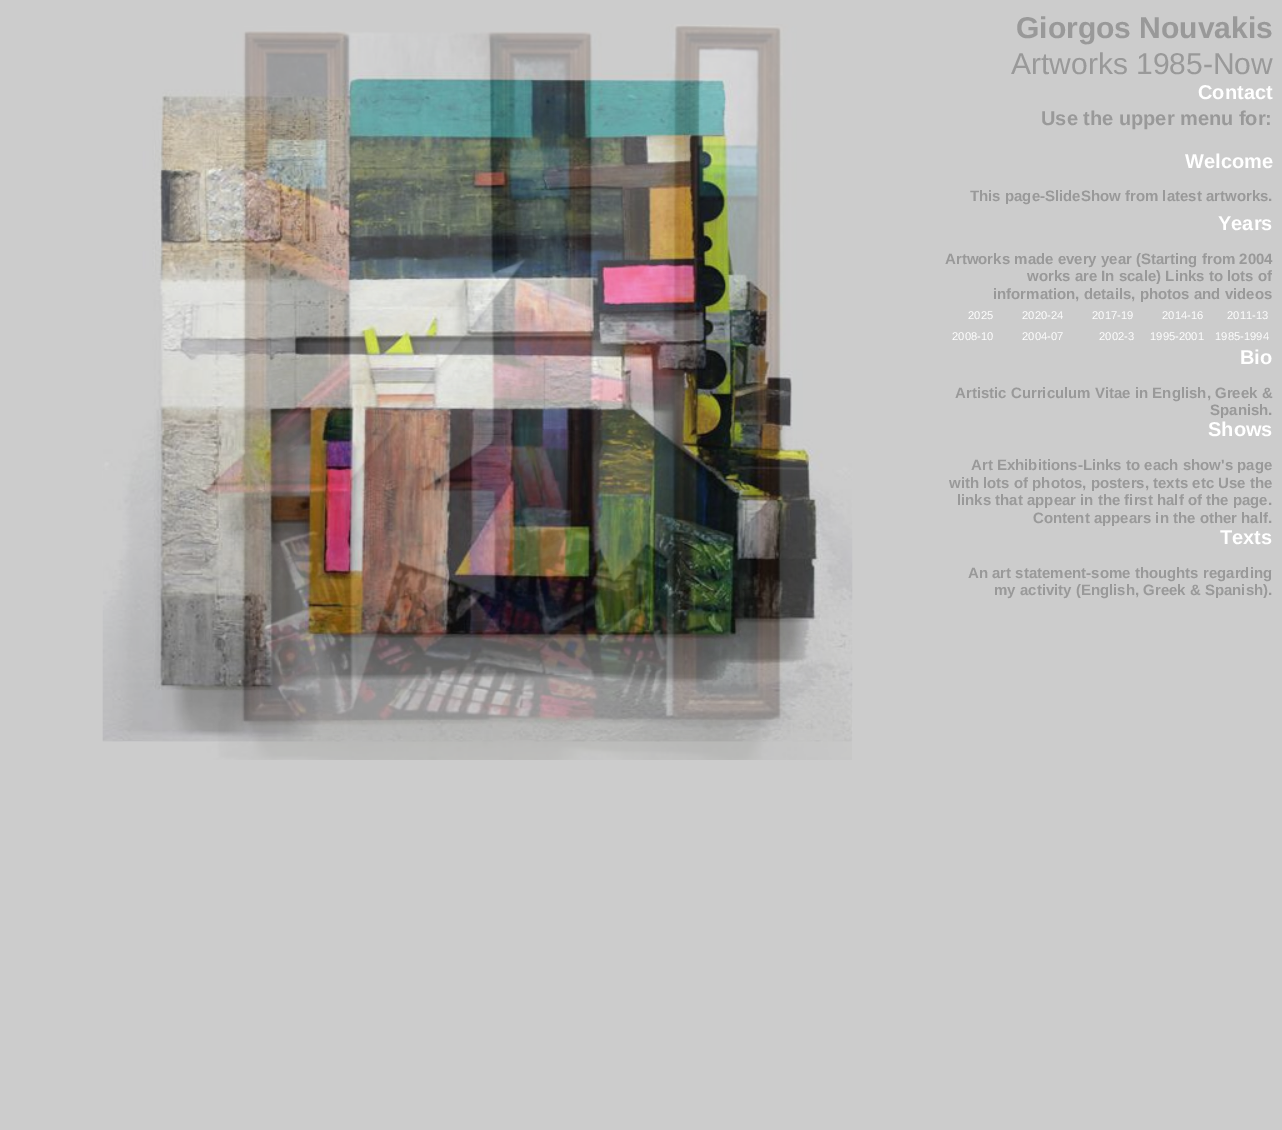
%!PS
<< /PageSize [1282 1130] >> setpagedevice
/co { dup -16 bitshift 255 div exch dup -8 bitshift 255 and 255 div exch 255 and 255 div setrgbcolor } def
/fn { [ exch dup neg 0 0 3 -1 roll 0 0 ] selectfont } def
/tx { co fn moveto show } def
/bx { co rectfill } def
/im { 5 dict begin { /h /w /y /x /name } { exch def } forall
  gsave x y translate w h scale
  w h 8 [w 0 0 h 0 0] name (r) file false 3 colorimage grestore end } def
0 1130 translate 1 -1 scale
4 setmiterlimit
0 0 1282 1130 16#CCCCCC bx
(media/2.raw) 102 70 751 672 im
(media/1.raw) 103 24 749 736 im
(Giorgos Nouvakis) 1016 38 /LiberationSans-Bold 30 16#999999 tx
(Artworks 1985-Now) 1011 74 /LiberationSans-Regular 30 16#999999 tx
(Contact) 1198 99 /LiberationSans-Bold 20 16#FFFFFF tx
(Use the upper menu for:) 1041 125 /LiberationSans-Bold 20 16#999999 tx
(Welcome) 1185 168 /LiberationSans-Bold 20 16#FFFFFF tx
(This page-SlideShow from latest artworks.) 970 201 /LiberationSans-Bold 15 16#999999 tx
(Years) 1218 230 /LiberationSans-Bold 20 16#FFFFFF tx
(Artworks made every year \(Starting from 2004) 945 264 /LiberationSans-Bold 15 16#999999 tx
(works are In scale\) Links to lots of) 1027 281 /LiberationSans-Bold 15 16#999999 tx
(information, details, photos and videos) 993 299 /LiberationSans-Bold 15 16#999999 tx
(2025) 968 319 /LiberationSans-Regular 11.25 16#FFFFFF tx
(2020-24) 1022 319 /LiberationSans-Regular 11.25 16#FFFFFF tx
(2017-19) 1092 319 /LiberationSans-Regular 11.25 16#FFFFFF tx
(2014-16) 1162 319 /LiberationSans-Regular 11.25 16#FFFFFF tx
(2011-13) 1227 319 /LiberationSans-Regular 11.25 16#FFFFFF tx
(2008-10) 952 340 /LiberationSans-Regular 11.25 16#FFFFFF tx
(2004-07) 1022 340 /LiberationSans-Regular 11.25 16#FFFFFF tx
(2002-3) 1099 340 /LiberationSans-Regular 11.25 16#FFFFFF tx
(1995-2001) 1150 340 /LiberationSans-Regular 11.25 16#FFFFFF tx
(1985-1994) 1215 340 /LiberationSans-Regular 11.25 16#FFFFFF tx
(Bio) 1240 364 /LiberationSans-Bold 20 16#FFFFFF tx
(Artistic Curriculum Vitae in English, Greek &) 955 398 /LiberationSans-Bold 15 16#999999 tx
(Spanish.) 1210 415 /LiberationSans-Bold 15 16#999999 tx
(Shows) 1208 436 /LiberationSans-Bold 20 16#FFFFFF tx
(Art Exhibitions-Links to each show's page) 971 470 /LiberationSans-Bold 15 16#999999 tx
(with lots of photos, posters, texts etc Use the) 949 488 /LiberationSans-Bold 15 16#999999 tx
(links that appear in the first half of the page.) 957 505 /LiberationSans-Bold 15 16#999999 tx
(Content appears in the other half.) 1033 523 /LiberationSans-Bold 15 16#999999 tx
(Texts) 1220 544 /LiberationSans-Bold 20 16#FFFFFF tx
(An art statement-some thoughts regarding) 968 578 /LiberationSans-Bold 15 16#999999 tx
(my activity \(English, Greek & Spanish\).) 994 595 /LiberationSans-Bold 15 16#999999 tx
showpage
